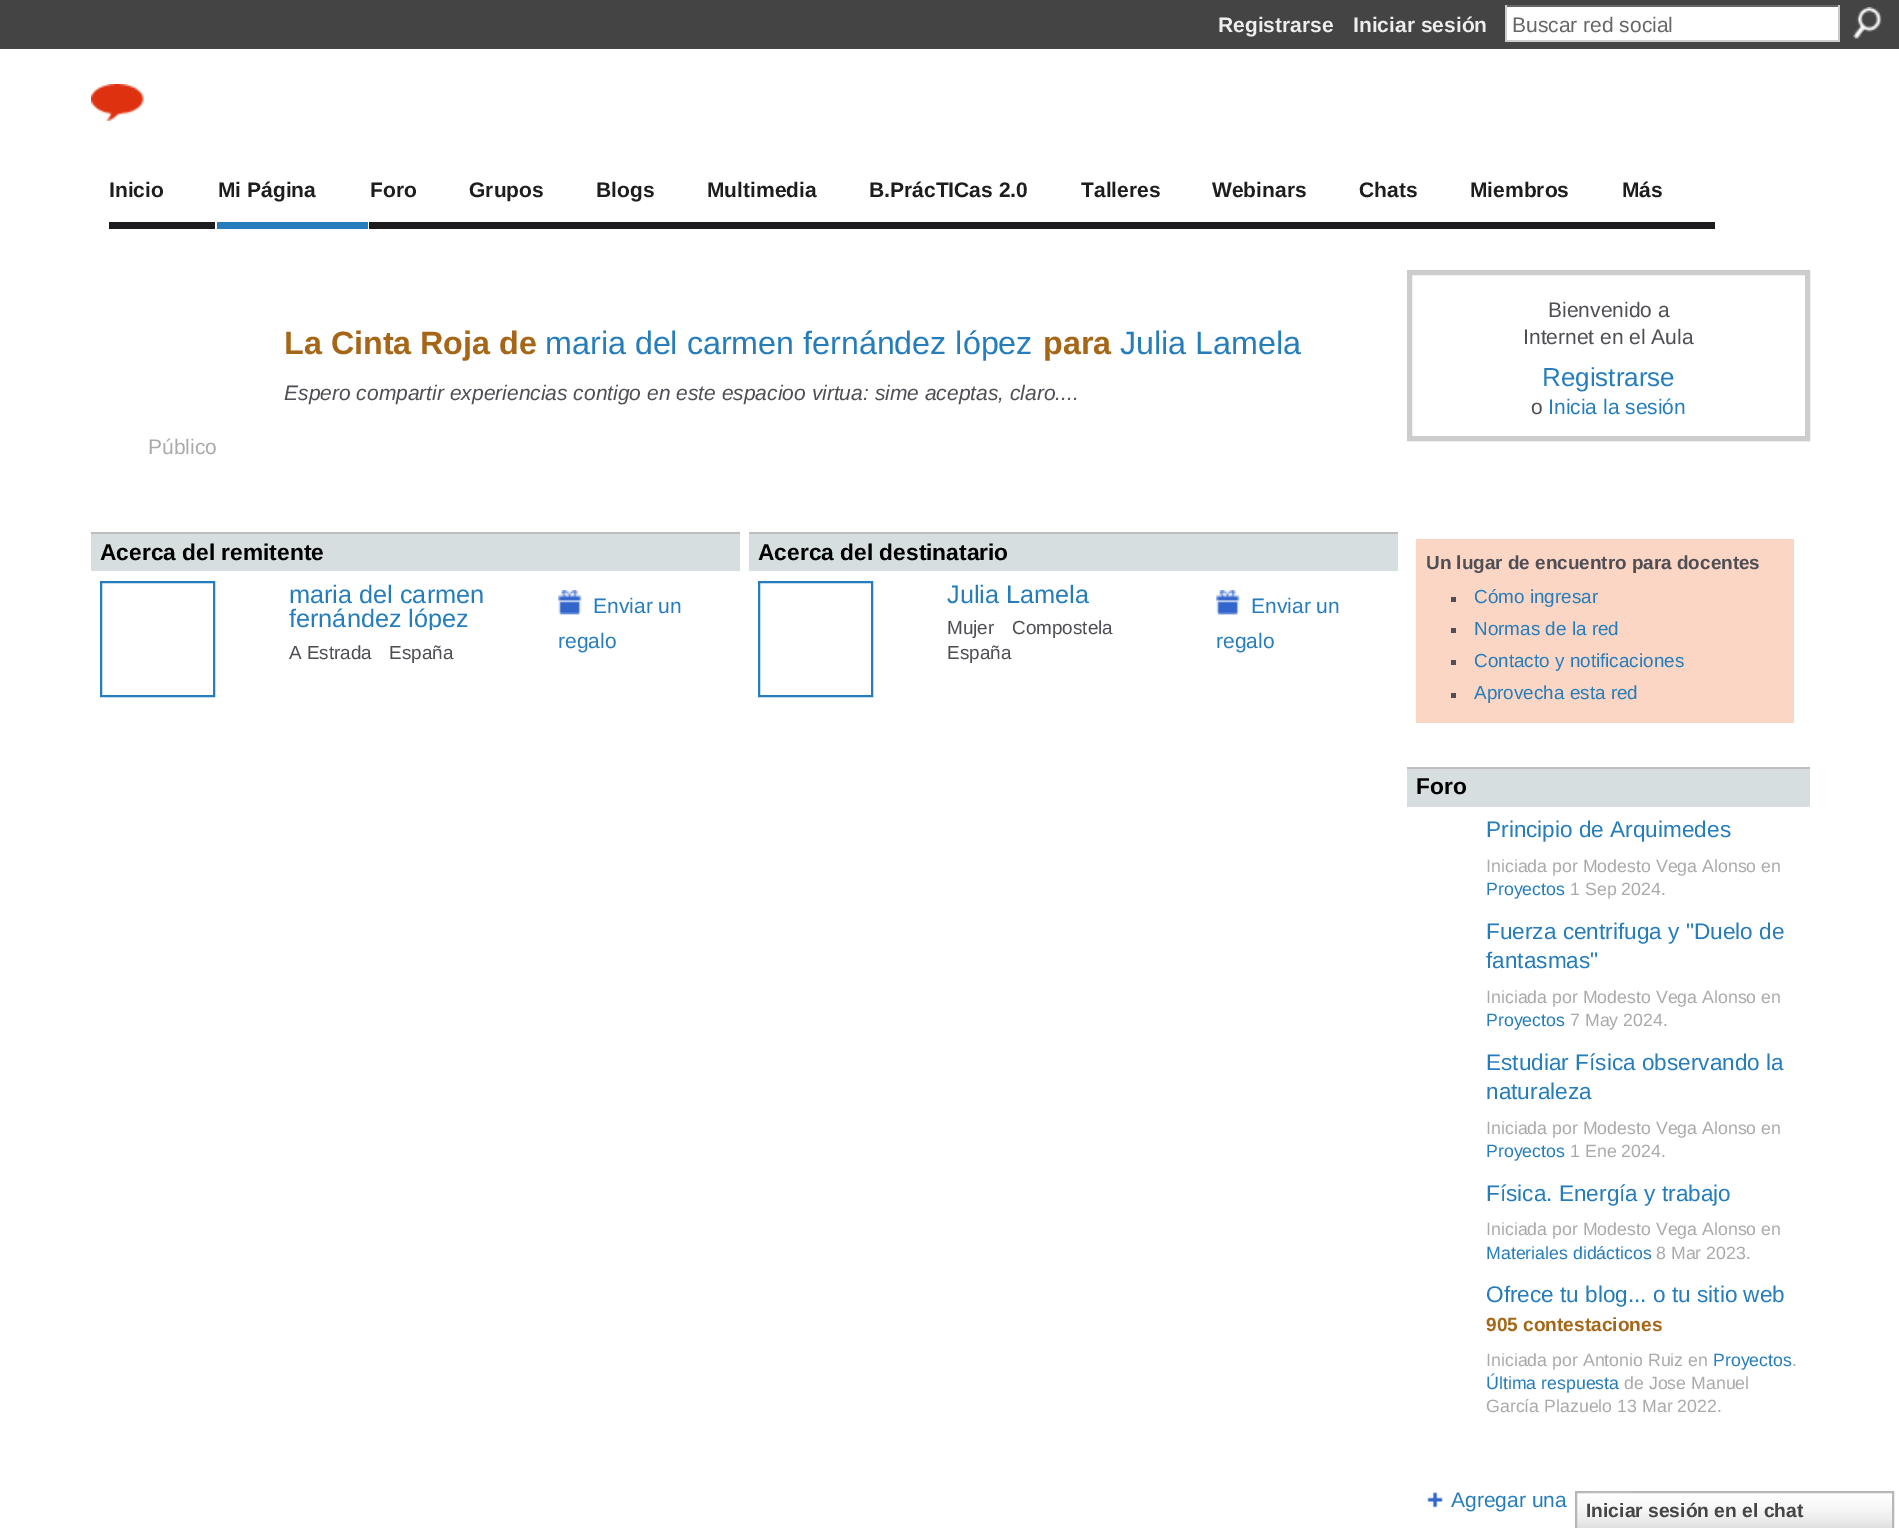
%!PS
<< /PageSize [1899 1528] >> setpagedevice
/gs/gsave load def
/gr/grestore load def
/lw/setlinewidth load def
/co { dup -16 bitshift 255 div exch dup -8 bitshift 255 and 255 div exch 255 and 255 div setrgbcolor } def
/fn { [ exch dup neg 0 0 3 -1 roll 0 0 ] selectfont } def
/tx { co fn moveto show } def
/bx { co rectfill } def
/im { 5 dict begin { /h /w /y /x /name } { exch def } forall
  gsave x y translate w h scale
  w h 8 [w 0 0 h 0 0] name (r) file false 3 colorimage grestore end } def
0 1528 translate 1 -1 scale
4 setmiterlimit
0 0 1899 1528 16#FFFFFF bx
0 0 1899 49 16#444444 bx
1507 7 331 33 16#FFFFFF bx
1505 5 334 2 16#666666 bx
1838 5 2 37 16#CCCCCC bx
1505 40 334 2 16#CCCCCC bx
1505 5 2 37 16#CCCCCC bx
(media/1.raw) 1853 7 29 32 im
(media/2.raw) 91 84 53 37 im
109 222 106 7 16#1D1D20 bx
217 222 151 7 16#267DBB bx
369 222 1346 7 16#1D1D20 bx
91 534 649 37 16#D7DEE0 bx
91 532 649 2 16#BDBDBD bx
16#267DBB co
2 lw
101 582 113 114 rectstroke
(media/3.raw) 558 590 24 25 im
749 534 649 37 16#D7DEE0 bx
749 532 649 2 16#BDBDBD bx
16#267DBB co
759 582 113 114 rectstroke
(media/3.raw) 1216 590 24 25 im
16#CCCCCC co
5 lw
1409.5 272.5 398 166 rectstroke
1416 539 378 184 16#FBD6C5 bx
1451 597 5 5 16#4E4E54 bx
1451 628 5 5 16#4E4E54 bx
1451 660 5 5 16#4E4E54 bx
1451 693 5 5 16#4E4E54 bx
1407 769 403 38 16#D7DEE0 bx
1407 767 403 2 16#BDBDBD bx
(media/4.raw) 1427 1492 16 16 im
(media/5.raw) 1577 1493 315 35 im
16#B7B7B7 co
2 lw
1576 1492 317 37 rectstroke
1586 1492 46 1 16#BBBBBB bx
(Registrarse) 1218 32 /LiberationSans-Bold 21 16#EEEEEE tx
(Iniciar sesión) 1353 32 /LiberationSans-Bold 21 16#EEEEEE tx
(Buscar red social) 1512 32 /LiberationSans-Regular 21 16#666666 tx
(Inicio) 109 197 /LiberationSans-Bold 21 16#1D1D1F tx
(Mi Página) 218 197 /LiberationSans-Bold 21 16#1D1D1F tx
(Foro) 370 197 /LiberationSans-Bold 21 16#1D1D1F tx
(Grupos) 469 197 /LiberationSans-Bold 21 16#1D1D1F tx
(Blogs) 596 197 /LiberationSans-Bold 21 16#1D1D1F tx
(Multimedia) 707 197 /LiberationSans-Bold 21 16#1D1D1F tx
(B.PrácTICas 2.0) 869 197 /LiberationSans-Bold 21 16#1D1D1F tx
(Talleres) 1081 197 /LiberationSans-Bold 21 16#1D1D1F tx
(Webinars) 1212 197 /LiberationSans-Bold 21 16#1D1D1F tx
(Chats) 1359 197 /LiberationSans-Bold 21 16#1D1D1F tx
(Miembros) 1470 197 /LiberationSans-Bold 21 16#1D1D1F tx
(Más) 1622 197 /LiberationSans-Bold 21 16#1D1D1F tx
(La Cinta Roja de) 284 354 /LiberationSans-Bold 32.25 16#A66617 tx
(maria del carmen fernández lópez) 545 354 /LiberationSans-Regular 32.25 16#267DBB tx
(para) 1043 354 /LiberationSans-Bold 32.25 16#A66617 tx
(Julia Lamela) 1120 354 /LiberationSans-Regular 32.25 16#267DBB tx
(Espero compartir experiencias contigo en este espacioo virtua: sime aceptas, claro....) 284 400 /LiberationSans-Italic 21 16#4E4E54 tx
(Público) 148 454 /LiberationSans-Regular 21 16#AAAAAA tx
(Acerca del remitente) 100 560 /LiberationSans-Bold 22.75 16#000000 tx
(maria del carmen) 289 603 /LiberationSans-Regular 25.25 16#267DBB tx
gs
289 581 213 49 rectclip
(fernández lópez) 289 627 /LiberationSans-Regular 25.25 16#267DBB tx
gr
(A Estrada) 289 659 /LiberationSans-Regular 18.9 16#4E4E54 tx
(España) 389 659 /LiberationSans-Regular 18.9 16#4E4E54 tx
(Enviar un) 593 613 /LiberationSans-Regular 21 16#267DBB tx
(regalo) 558 648 /LiberationSans-Regular 21 16#267DBB tx
(Acerca del destinatario) 758 560 /LiberationSans-Bold 22.75 16#000000 tx
(Julia Lamela) 947 603 /LiberationSans-Regular 25.25 16#267DBB tx
(Mujer) 947 634 /LiberationSans-Regular 18.9 16#4E4E54 tx
(Compostela) 1012 634 /LiberationSans-Regular 18.9 16#4E4E54 tx
(España) 947 659 /LiberationSans-Regular 18.9 16#4E4E54 tx
(Enviar un) 1251 613 /LiberationSans-Regular 21 16#267DBB tx
(regalo) 1216 648 /LiberationSans-Regular 21 16#267DBB tx
(Bienvenido a) 1548 317 /LiberationSans-Regular 21 16#4E4E54 tx
(Internet en el Aula) 1523 344 /LiberationSans-Regular 21 16#4E4E54 tx
(Registrarse) 1542 386 /LiberationSans-Regular 26 16#267DBB tx
(o) 1531 414 /LiberationSans-Regular 21 16#4E4E54 tx
(Inicia la sesión) 1548 414 /LiberationSans-Regular 21 16#267DBB tx
(Un lugar de encuentro para docentes) 1426 569 /LiberationSans-Bold 18.9 16#4E4E54 tx
(Cómo ingresar) 1474 603 /LiberationSans-Regular 18.9 16#267DBB tx
(Normas de la red) 1474 635 /LiberationSans-Regular 18.9 16#267DBB tx
(Contacto y notificaciones) 1474 667 /LiberationSans-Regular 18.9 16#267DBB tx
(Aprovecha esta red) 1474 699 /LiberationSans-Regular 18.9 16#267DBB tx
(Foro) 1416 794 /LiberationSans-Bold 22.75 16#000000 tx
(Principio de Arquimedes) 1486 837 /LiberationSans-Regular 22.6 16#267DBB tx
(Iniciada por Modesto Vega Alonso en) 1486 872 /LiberationSans-Regular 17.75 16#AAAAAA tx
(Proyectos) 1486 895 /LiberationSans-Regular 17.75 16#267DBB tx
(1 Sep 2024.) 1570 895 /LiberationSans-Regular 17.75 16#AAAAAA tx
(Fuerza centrifuga y "Duelo de) 1486 939 /LiberationSans-Regular 22.6 16#267DBB tx
(fantasmas") 1486 968 /LiberationSans-Regular 22.6 16#267DBB tx
(Iniciada por Modesto Vega Alonso en) 1486 1003 /LiberationSans-Regular 17.75 16#AAAAAA tx
(Proyectos) 1486 1026 /LiberationSans-Regular 17.75 16#267DBB tx
(7 May 2024.) 1570 1026 /LiberationSans-Regular 17.75 16#AAAAAA tx
(Estudiar Física observando la) 1486 1070 /LiberationSans-Regular 22.6 16#267DBB tx
(naturaleza) 1486 1099 /LiberationSans-Regular 22.6 16#267DBB tx
(Iniciada por Modesto Vega Alonso en) 1486 1134 /LiberationSans-Regular 17.75 16#AAAAAA tx
(Proyectos) 1486 1157 /LiberationSans-Regular 17.75 16#267DBB tx
(1 Ene 2024.) 1570 1157 /LiberationSans-Regular 17.75 16#AAAAAA tx
(Física. Energía y trabajo) 1486 1201 /LiberationSans-Regular 22.6 16#267DBB tx
(Iniciada por Modesto Vega Alonso en) 1486 1235 /LiberationSans-Regular 17.75 16#AAAAAA tx
(Materiales didácticos) 1486 1259 /LiberationSans-Regular 17.75 16#267DBB tx
(8 Mar 2023.) 1656 1259 /LiberationSans-Regular 17.75 16#AAAAAA tx
(Ofrece tu blog... o tu sitio web) 1486 1302 /LiberationSans-Regular 22.6 16#267DBB tx
(905 contestaciones) 1486 1331 /LiberationSans-Bold 19.1 16#A66617 tx
(Iniciada por Antonio Ruiz en) 1486 1366 /LiberationSans-Regular 17.75 16#AAAAAA tx
(Proyectos) 1713 1366 /LiberationSans-Regular 17.75 16#267DBB tx
(.) 1792 1366 /LiberationSans-Regular 17.75 16#AAAAAA tx
(Última respuesta) 1486 1389 /LiberationSans-Regular 17.75 16#267DBB tx
(de Jose Manuel) 1624 1389 /LiberationSans-Regular 17.75 16#AAAAAA tx
(García Plazuelo 13 Mar 2022.) 1486 1412 /LiberationSans-Regular 17.75 16#AAAAAA tx
(Agregar una) 1451 1507 /LiberationSans-Regular 21 16#267DBB tx
(Iniciar sesión en el chat) 1586 1517 /LiberationSans-Bold 19.25 16#454545 tx
showpage
